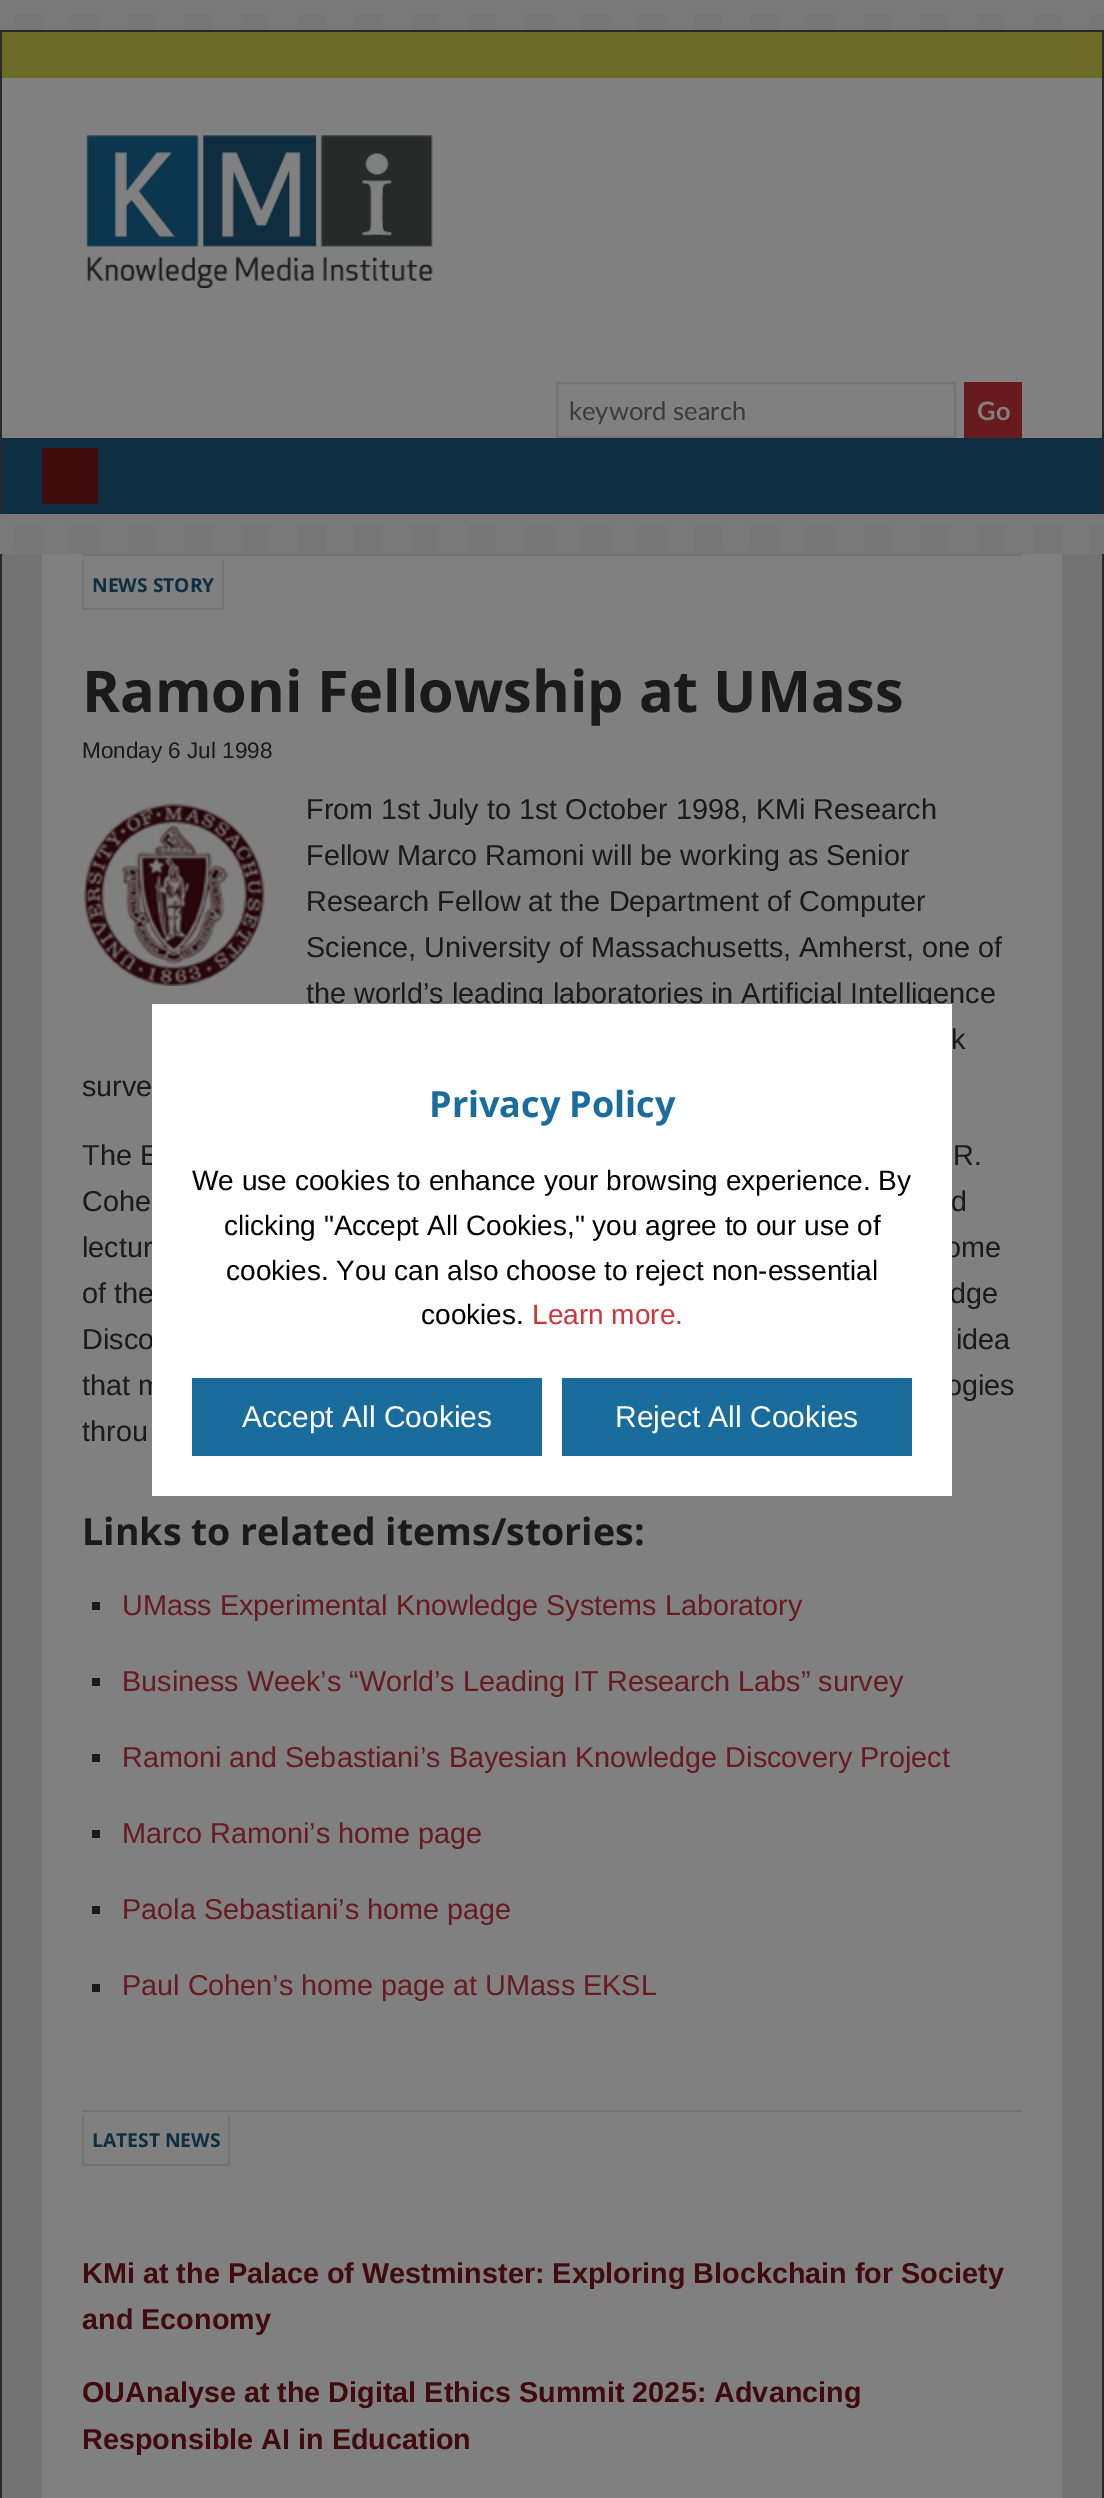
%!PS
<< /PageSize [1104 2498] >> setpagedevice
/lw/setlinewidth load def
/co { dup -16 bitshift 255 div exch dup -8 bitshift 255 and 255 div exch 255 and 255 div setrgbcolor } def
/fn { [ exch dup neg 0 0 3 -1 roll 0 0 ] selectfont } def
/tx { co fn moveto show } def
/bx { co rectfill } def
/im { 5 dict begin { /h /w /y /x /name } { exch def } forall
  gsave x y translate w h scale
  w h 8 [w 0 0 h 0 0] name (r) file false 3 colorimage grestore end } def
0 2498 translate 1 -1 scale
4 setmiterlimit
0 0 1104 2498 16#FFFFFF bx
(media/1.raw) 0 0 1104 554 im
2 32 1100 46 16#6B6A27 bx
0 30 1104 2 16#282A2A bx
1102 30 2 484 16#282A2A bx
0 30 2 484 16#282A2A bx
2 78 1100 360 16#808080 bx
(media/2.raw) 86 135 347 153 im
16#737373 co
2 lw
557 383 398 54 rectstroke
964 382 58 56 16#671B1E bx
2 438 1100 76 16#0E2E41 bx
42 448 56 56 16#410B0D bx
2 554 1100 1944 16#737373 bx
1102 554 2 1944 16#282A2A bx
0 554 2 1944 16#282A2A bx
42 554 1020 1944 16#808080 bx
82 554 940 2 16#737373 bx
222 560 2 50 16#737373 bx
82 608 142 2 16#737373 bx
82 560 2 50 16#737373 bx
(media/3.raw) 83 803 182 183 im
92 1602 8 8 16#1A1A1A bx
92 1678 8 8 16#1A1A1A bx
92 1754 8 8 16#1A1A1A bx
92 1830 8 8 16#1A1A1A bx
92 1906 8 8 16#1A1A1A bx
92 1984 8 8 16#1A1A1A bx
82 2110 940 2 16#737373 bx
228 2116 2 50 16#737373 bx
82 2164 148 2 16#737373 bx
82 2116 2 50 16#737373 bx
(keyword search) 569 420 /Lato-Regular 25.5 16#3B3B3B tx
(Go) 977 420 /Lato-Bold 25.5 16#808080 tx
(NEWS STORY) 92 592 /OpenSans-Bold 19.25 16#0E2E41 tx
(Ramoni Fellowship at UMass) 82 712 /OpenSans-Bold 57.6 16#1A1A1A tx
(Monday 6 Jul 1998) 82 758 /LiberationSans-Regular 22.5 16#1A1A1A tx
(From 1st July to 1st October 1998, KMi Research) 306 819 /LiberationSans-Regular 28.8 16#1A1A1A tx
(Fellow Marco Ramoni will be working as Senior) 306 865 /LiberationSans-Regular 28.8 16#1A1A1A tx
(Research Fellow at the Department of Computer) 306 911 /LiberationSans-Regular 28.8 16#1A1A1A tx
(Science, University of Massachusetts, Amherst, one of) 306 957 /LiberationSans-Regular 28.8 16#1A1A1A tx
(the world’s leading laboratories in Artificial Intelligence) 306 1003 /LiberationSans-Regular 28.8 16#1A1A1A tx
(k) 951 1049 /LiberationSans-Regular 28.8 16#1A1A1A tx
(surve) 82 1096 /LiberationSans-Regular 28.8 16#1A1A1A tx
(The E) 82 1165 /LiberationSans-Regular 28.8 16#1A1A1A tx
(R.) 953 1165 /LiberationSans-Regular 28.8 16#1A1A1A tx
(Cohe) 82 1211 /LiberationSans-Regular 28.8 16#1A1A1A tx
(d) 951 1211 /LiberationSans-Regular 28.8 16#1A1A1A tx
(lectur) 82 1257 /LiberationSans-Regular 28.8 16#1A1A1A tx
(ome) 945 1257 /LiberationSans-Regular 28.8 16#1A1A1A tx
(of the) 82 1303 /LiberationSans-Regular 28.8 16#1A1A1A tx
(dge) 950 1303 /LiberationSans-Regular 28.8 16#1A1A1A tx
(Disco) 82 1349 /LiberationSans-Regular 28.8 16#1A1A1A tx
(idea) 956 1349 /LiberationSans-Regular 28.8 16#1A1A1A tx
(that m) 82 1395 /LiberationSans-Regular 28.8 16#1A1A1A tx
(ogies) 946 1395 /LiberationSans-Regular 28.8 16#1A1A1A tx
(throu) 82 1441 /LiberationSans-Regular 28.8 16#1A1A1A tx
(Links to related items/stories:) 82 1545 /OpenSans-Bold 37.5 16#1A1A1A tx
(UMass Experimental Knowledge Systems Laboratory) 122 1615 /LiberationSans-Regular 28.8 16#671B1E tx
(Business Week’s “World’s Leading IT Research Labs” survey) 122 1691 /LiberationSans-Regular 28.8 16#671B1E tx
(Ramoni and Sebastiani’s Bayesian Knowledge Discovery Project) 122 1767 /LiberationSans-Regular 28.8 16#671B1E tx
(Marco Ramoni’s home page) 122 1843 /LiberationSans-Regular 28.8 16#671B1E tx
(Paola Sebastiani’s home page) 122 1919 /LiberationSans-Regular 28.8 16#671B1E tx
(Paul Cohen’s home page at UMass EKSL) 122 1995 /LiberationSans-Regular 28.8 16#671B1E tx
(LATEST NEWS) 92 2147 /OpenSans-Bold 19.25 16#0E2E41 tx
(KMi at the Palace of Westminster: Exploring Blockchain for Society) 82 2283 /LiberationSans-Bold 28.8 16#410B0D tx
(and Economy) 82 2329 /LiberationSans-Bold 28.8 16#410B0D tx
(OUAnalyse at the Digital Ethics Summit 2025: Advancing) 82 2402 /LiberationSans-Bold 28.8 16#410B0D tx
(Responsible AI in Education) 82 2449 /LiberationSans-Bold 28.8 16#410B0D tx
152 1004 800 492 16#FFFFFF bx
(Privacy Policy) 429 1117 /OpenSans-Bold 36 16#196C9B tx
(We use cookies to enhance your browsing experience. By) 192 1190 /LiberationSans-Regular 28 16#000000 tx
(clicking "Accept All Cookies," you agree to our use of) 224 1235 /LiberationSans-Regular 28 16#000000 tx
(cookies. You can also choose to reject non-essential) 226 1280 /LiberationSans-Regular 28 16#000000 tx
(cookies.) 421 1324 /LiberationSans-Regular 28 16#000000 tx
(Learn more.) 532 1324 /LiberationSans-Regular 28 16#CE363C tx
192 1378 350 78 16#196C9B bx
(Accept All Cookies) 242 1427 /LiberationSans-Regular 30 16#FFFFFF tx
562 1378 350 78 16#196C9B bx
(Reject All Cookies) 615 1427 /LiberationSans-Regular 30 16#FFFFFF tx
showpage
